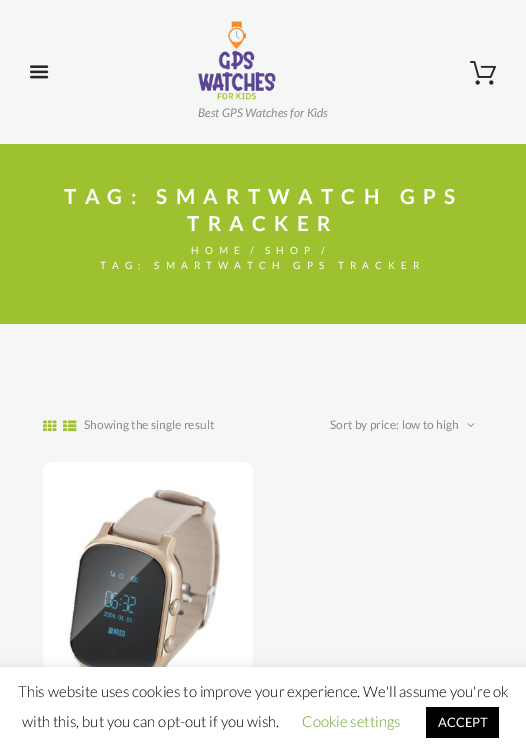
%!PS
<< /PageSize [526 755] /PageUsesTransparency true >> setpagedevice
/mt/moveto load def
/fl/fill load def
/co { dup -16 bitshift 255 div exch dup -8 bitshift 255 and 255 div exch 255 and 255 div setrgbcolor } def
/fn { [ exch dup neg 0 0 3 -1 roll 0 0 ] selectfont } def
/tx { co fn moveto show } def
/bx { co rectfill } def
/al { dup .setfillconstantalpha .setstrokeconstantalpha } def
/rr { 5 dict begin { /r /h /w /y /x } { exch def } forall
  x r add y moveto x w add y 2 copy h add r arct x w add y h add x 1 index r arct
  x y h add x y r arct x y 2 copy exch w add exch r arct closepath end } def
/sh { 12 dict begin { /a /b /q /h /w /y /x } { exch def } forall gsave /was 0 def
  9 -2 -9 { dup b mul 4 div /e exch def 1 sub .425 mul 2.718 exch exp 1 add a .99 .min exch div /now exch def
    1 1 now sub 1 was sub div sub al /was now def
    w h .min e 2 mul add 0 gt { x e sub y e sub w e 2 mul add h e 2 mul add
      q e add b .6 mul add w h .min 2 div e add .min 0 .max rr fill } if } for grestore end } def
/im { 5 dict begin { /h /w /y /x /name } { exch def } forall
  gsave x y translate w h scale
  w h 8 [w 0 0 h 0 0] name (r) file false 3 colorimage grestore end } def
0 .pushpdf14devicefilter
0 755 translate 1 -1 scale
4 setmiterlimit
0 0 526 755 16#F5F6F6 bx
(media/1.raw) 30 65 19 14 im
(media/2.raw) 470 61 26 24 im
(media/3.raw) 198 21 78 79 im
0 144 526 180 16#9EC12F bx
(media/4.raw) 43 420 14 12 im
(media/5.raw) 63 420 14 12 im
(media/6.raw) 467 423 8 4 im
16#FFFFFF co
43 462 210 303 10 rr fl
(media/7.raw) 65 487 157 180 im
16#ACABAB co
0 666 526 88 0 5 .3 sh
0 667 526 88 16#FFFFFF bx
426 707 73 31 16#000000 bx
(Best GPS Watches for Kids) 198 117 /Lato-Italic 12 16#8B8B8B tx
/Lato-Bold 20.6 fn
16#FFFFFF co
64 204 mt 8.25 0 (TAG: SMARTWATCH GPS) ashow
187 231 mt 8.25 0 (TRACKER) ashow
/Lato-Regular 10 fn
191 254 mt 6 0 (HOME) ashow
250 254 mt 6 0 (/) ashow
265 254 mt 6 0 (SHOP) ashow
321 254 mt 6 0 (/) ashow
100 269 mt 6 0 (TAG: SMARTWATCH GPS TRACKER) ashow
(Showing the single result) 84 429 /Lato-Regular 12 16#8B8B8B tx
(Sort by price: low to high) 330 429 /Lato-Regular 12 16#8B8B8B tx
(This website uses cookies to improve your experience. We'll assume you're ok) 18 697 /Lato-Light 15 16#000000 tx
(with this, but you can opt-out if you wish.) 22 727 /Lato-Light 15 16#000000 tx
(Cookie settings) 302 727 /Lato-Light 15 16#62A329 tx
(ACCEPT) 438 727 /Lato-Regular 13 16#FFFFFF tx
.poppdf14devicefilter showpage
